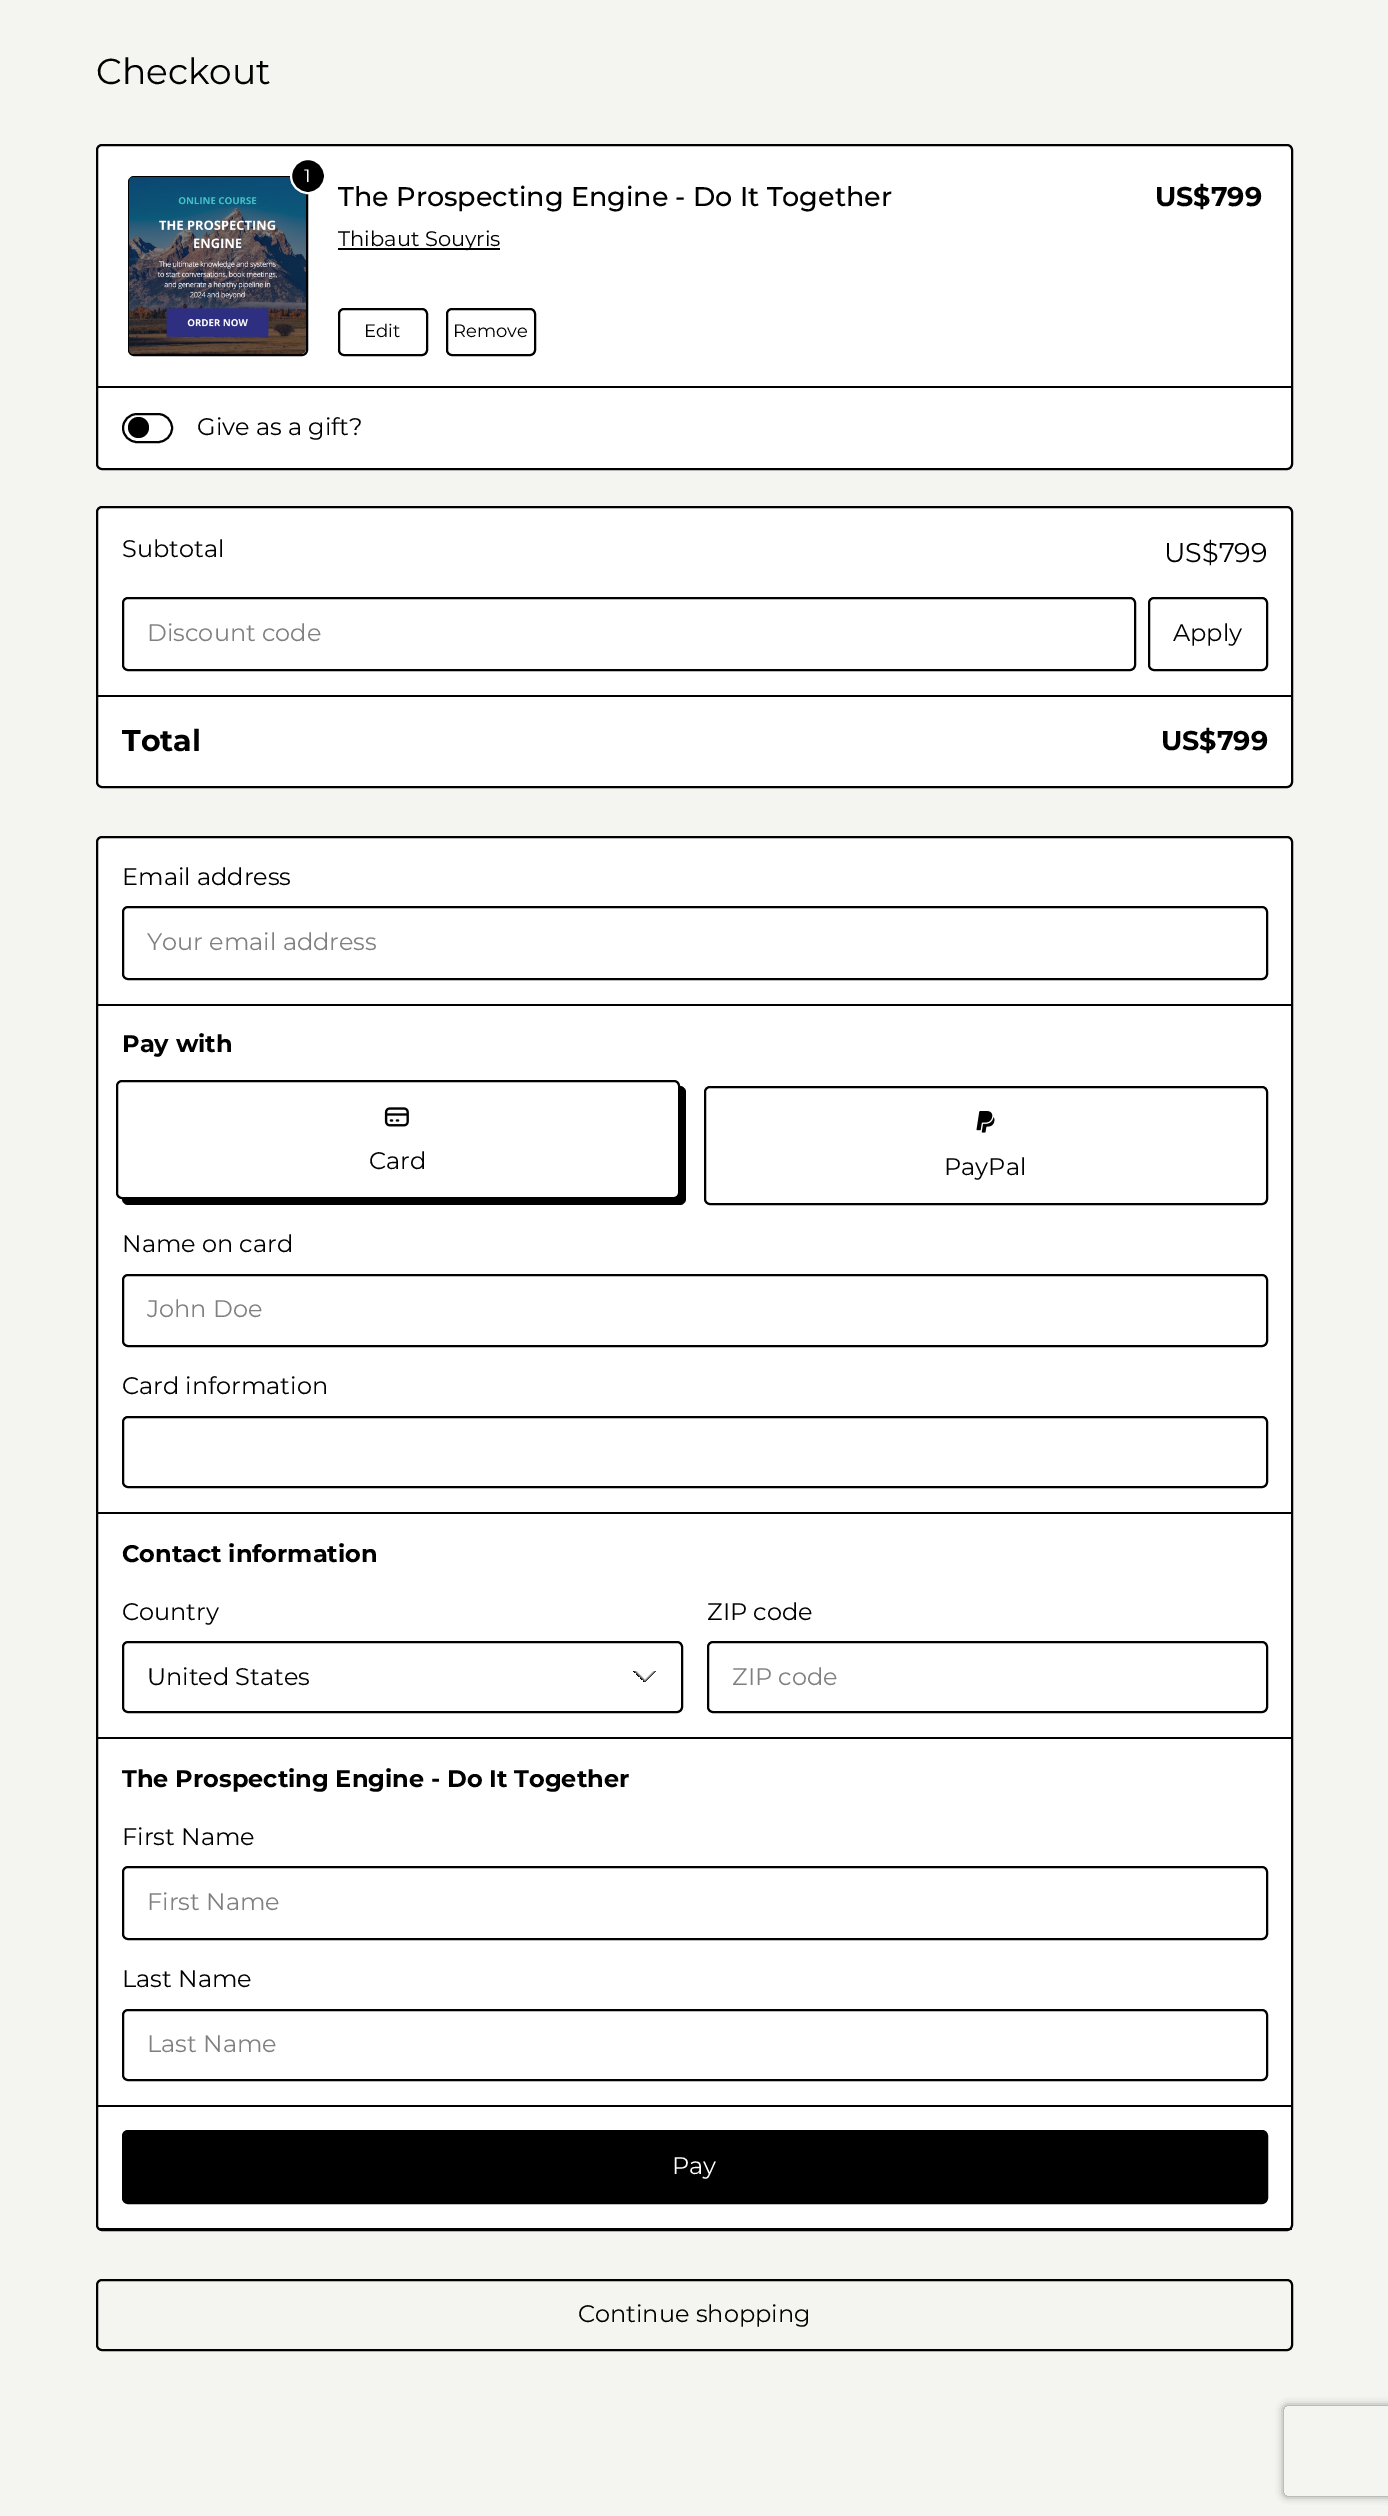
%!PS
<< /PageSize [1388 2516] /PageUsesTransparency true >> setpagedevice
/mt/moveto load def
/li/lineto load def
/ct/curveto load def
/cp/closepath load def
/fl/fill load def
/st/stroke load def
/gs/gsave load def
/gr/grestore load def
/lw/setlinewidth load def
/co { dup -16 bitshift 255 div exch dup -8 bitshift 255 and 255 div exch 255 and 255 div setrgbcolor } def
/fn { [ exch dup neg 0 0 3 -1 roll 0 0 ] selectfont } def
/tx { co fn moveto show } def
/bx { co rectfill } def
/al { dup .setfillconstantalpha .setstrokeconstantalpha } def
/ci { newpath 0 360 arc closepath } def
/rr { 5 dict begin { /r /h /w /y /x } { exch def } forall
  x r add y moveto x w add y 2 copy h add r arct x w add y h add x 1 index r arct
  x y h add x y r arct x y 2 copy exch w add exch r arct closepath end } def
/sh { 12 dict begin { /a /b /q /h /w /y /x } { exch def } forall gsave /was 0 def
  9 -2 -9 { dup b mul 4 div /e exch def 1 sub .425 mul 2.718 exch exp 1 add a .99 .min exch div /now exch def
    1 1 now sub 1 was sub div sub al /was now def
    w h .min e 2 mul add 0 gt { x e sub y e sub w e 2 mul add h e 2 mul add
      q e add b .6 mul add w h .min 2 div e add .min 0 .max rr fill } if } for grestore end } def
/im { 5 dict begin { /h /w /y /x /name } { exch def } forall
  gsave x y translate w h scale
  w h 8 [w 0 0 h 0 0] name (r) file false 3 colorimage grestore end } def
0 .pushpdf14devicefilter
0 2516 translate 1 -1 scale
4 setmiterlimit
0 0 1388 2516 16#F4F4F0 bx
16#FFFFFF co
97 145 1195 324 5 rr gs fl gr
16#000000 co
2 lw
st
129 177 178 178 5 rr st
(media/1.raw) 129 177 177 177 im
308 176 17 ci gs fl gr
16#FFFFFF co
st
338 248 162 2 16#000000 bx
339 309 88 46 5 rr st
447 309 88 46 5 rr st
98 386 1194 2 16#000000 bx
123 414 49 28 14 rr st
138.5 427.5 10.5 ci fl
16#FFFFFF co
97 507 1195 280 5 rr gs fl gr
16#000000 co
st
123 598 1012 72 5 rr st
1149 598 118 72 5 rr st
98 695 1194 2 16#000000 bx
16#FFFFFF co
97 837 1195 1393 5 rr gs fl gr
16#000000 co
st
98 1004 1194 2 16#000000 bx
123 907 1144 72 5 rr st
122 1198 mt 122 1199 li 122 1202 125 1205 128 1205 ct 680 1205 li 683 1205 686 1202 686 1199 ct 686 1092 li 686 1089 683 1086 680 1086 ct 680 1192 li 680 1196 677 1198 674 1198 ct cp fl
16#FFFFFF co
117 1081 562 117 5 rr gs fl gr
16#000000 co
st
(media/2.raw) 384 1107 25 20 im
705 1087 562 117 5 rr st
(media/3.raw) 976 1111 19 22 im
98 1512 1194 2 16#000000 bx
123 1275 1144 71 5 rr st
123 1417 1144 70 5 rr st
98 1737 1194 2 16#000000 bx
gs 645 1671 mt 657 1671 li 657 1683 li 645 1683 li cp clip newpath
<< /ShadingType 2 /ColorSpace /DeviceRGB /Coords [657 1683 645 1671] /Extend [true true] /Function << /FunctionType 3 /Domain [0 1] /Functions [<< /FunctionType 2 /Domain [0 1] /C0 [1 1 1] /C1 [1 1 1] /N 1 >> << /FunctionType 2 /Domain [0 1] /C0 [0 0 0] /C1 [1 1 1] /N 1 >> << /FunctionType 2 /Domain [0 1] /C0 [1 1 1] /C1 [1 1 1] /N 1 >>] /Bounds [.5 .68] /Encode [0 1 0 1 0 1] >> >> shfill gr
gs 633 1671 mt 645 1671 li 645 1682 li 633 1682 li cp clip newpath
<< /ShadingType 2 /ColorSpace /DeviceRGB /Coords [633 1683 645 1671] /Extend [true true] /Function << /FunctionType 3 /Domain [0 1] /Functions [<< /FunctionType 2 /Domain [0 1] /C0 [1 1 1] /C1 [1 1 1] /N 1 >> << /FunctionType 2 /Domain [0 1] /C0 [0 0 0] /C1 [1 1 1] /N 1 >> << /FunctionType 2 /Domain [0 1] /C0 [1 1 1] /C1 [1 1 1] /N 1 >>] /Bounds [.5 .68] /Encode [0 1 0 1 0 1] >> >> shfill gr
123 1642 559 70 5 rr st
708 1642 559 70 5 rr st
98 2105 1194 2 16#000000 bx
123 1867 1144 72 5 rr st
123 2010 1144 70 5 rr st
98 2228 1194 2 16#000000 bx
123 2131 1144 72 5 rr gs fl gr
st
gs
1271 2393 mt 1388 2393 li 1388 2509 li 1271 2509 li cp 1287 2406 mt 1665 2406 li 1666.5 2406 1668 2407.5 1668 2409 ct 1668 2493 li 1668 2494.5 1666.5 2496 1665 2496 ct 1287 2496 li 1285.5 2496 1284 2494.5 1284 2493 ct 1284 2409 li 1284 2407.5 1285.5 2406 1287 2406 ct cp eoclip newpath
16#808080 co
1284 2406 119 90 3 4 1 sh
gr
97 2280 1195 70 5 rr st
(Checkout) 96 84 /Montserrat-Regular 36 16#000000 tx
(1) 304 182 /Montserrat-Regular 18 16#FFFFFF tx
gs
338 176 787 42 rectclip
(The Prospecting Engine - Do It Together) 338 206 /Montserrat-Medium 27 16#000000 tx
gr
(Thibaut Souyris) 338 246 /Montserrat-Regular 21 16#000000 tx
(Edit) 364 337 /Montserrat-Regular 18 16#000000 tx
(Remove) 453 337 /Montserrat-Regular 18 16#000000 tx
(US$799) 1155 206 /Montserrat-Bold 27 16#000000 tx
(Give as a gift?) 197 435 /Montserrat-Regular 24 16#000000 tx
(Subtotal) 122 557 /Montserrat-Regular 24 16#000000 tx
(US$799) 1164 562 /Montserrat-Regular 27 16#000000 tx
(Discount code) 147 641 /Montserrat-Regular 24 16#808080 tx
(Apply) 1173 641 /Montserrat-Regular 24 16#000000 tx
(Total) 122 751 /Montserrat-Bold 30 16#000000 tx
(US$799) 1161 750 /Montserrat-Bold 27 16#000000 tx
(Email address) 122 885 /Montserrat-Regular 24 16#000000 tx
(Your email address) 147 950 /Montserrat-Regular 24 16#808080 tx
(Pay with) 122 1052 /Montserrat-Bold 24 16#000000 tx
(Card) 369 1169 /Montserrat-Regular 24 16#000000 tx
(PayPal) 944 1175 /Montserrat-Regular 24 16#000000 tx
(Name on card) 122 1252 /Montserrat-Regular 24 16#000000 tx
(John Doe) 147 1317 /Montserrat-Regular 24 16#808080 tx
(Card information) 122 1394 /Montserrat-Regular 24 16#000000 tx
(Contact information) 122 1562 /Montserrat-Bold 24 16#000000 tx
(Country) 122 1620 /Montserrat-Regular 24 16#000000 tx
(United States) 147 1685 /Montserrat-Regular 24 16#000000 tx
(ZIP code) 707 1620 /Montserrat-Regular 24 16#000000 tx
(ZIP code) 732 1685 /Montserrat-Regular 24 16#808080 tx
(The Prospecting Engine - Do It Together) 122 1787 /Montserrat-Bold 24 16#000000 tx
(First Name) 122 1845 /Montserrat-Regular 24 16#000000 tx
(First Name) 147 1910 /Montserrat-Regular 24 16#808080 tx
(Last Name) 122 1987 /Montserrat-Regular 24 16#000000 tx
(Last Name) 147 2052 /Montserrat-Regular 24 16#808080 tx
(Pay) 672 2174 /Montserrat-Regular 24 16#FFFFFF tx
(Continue shopping) 578 2322 /Montserrat-Regular 24 16#000000 tx
.poppdf14devicefilter showpage
